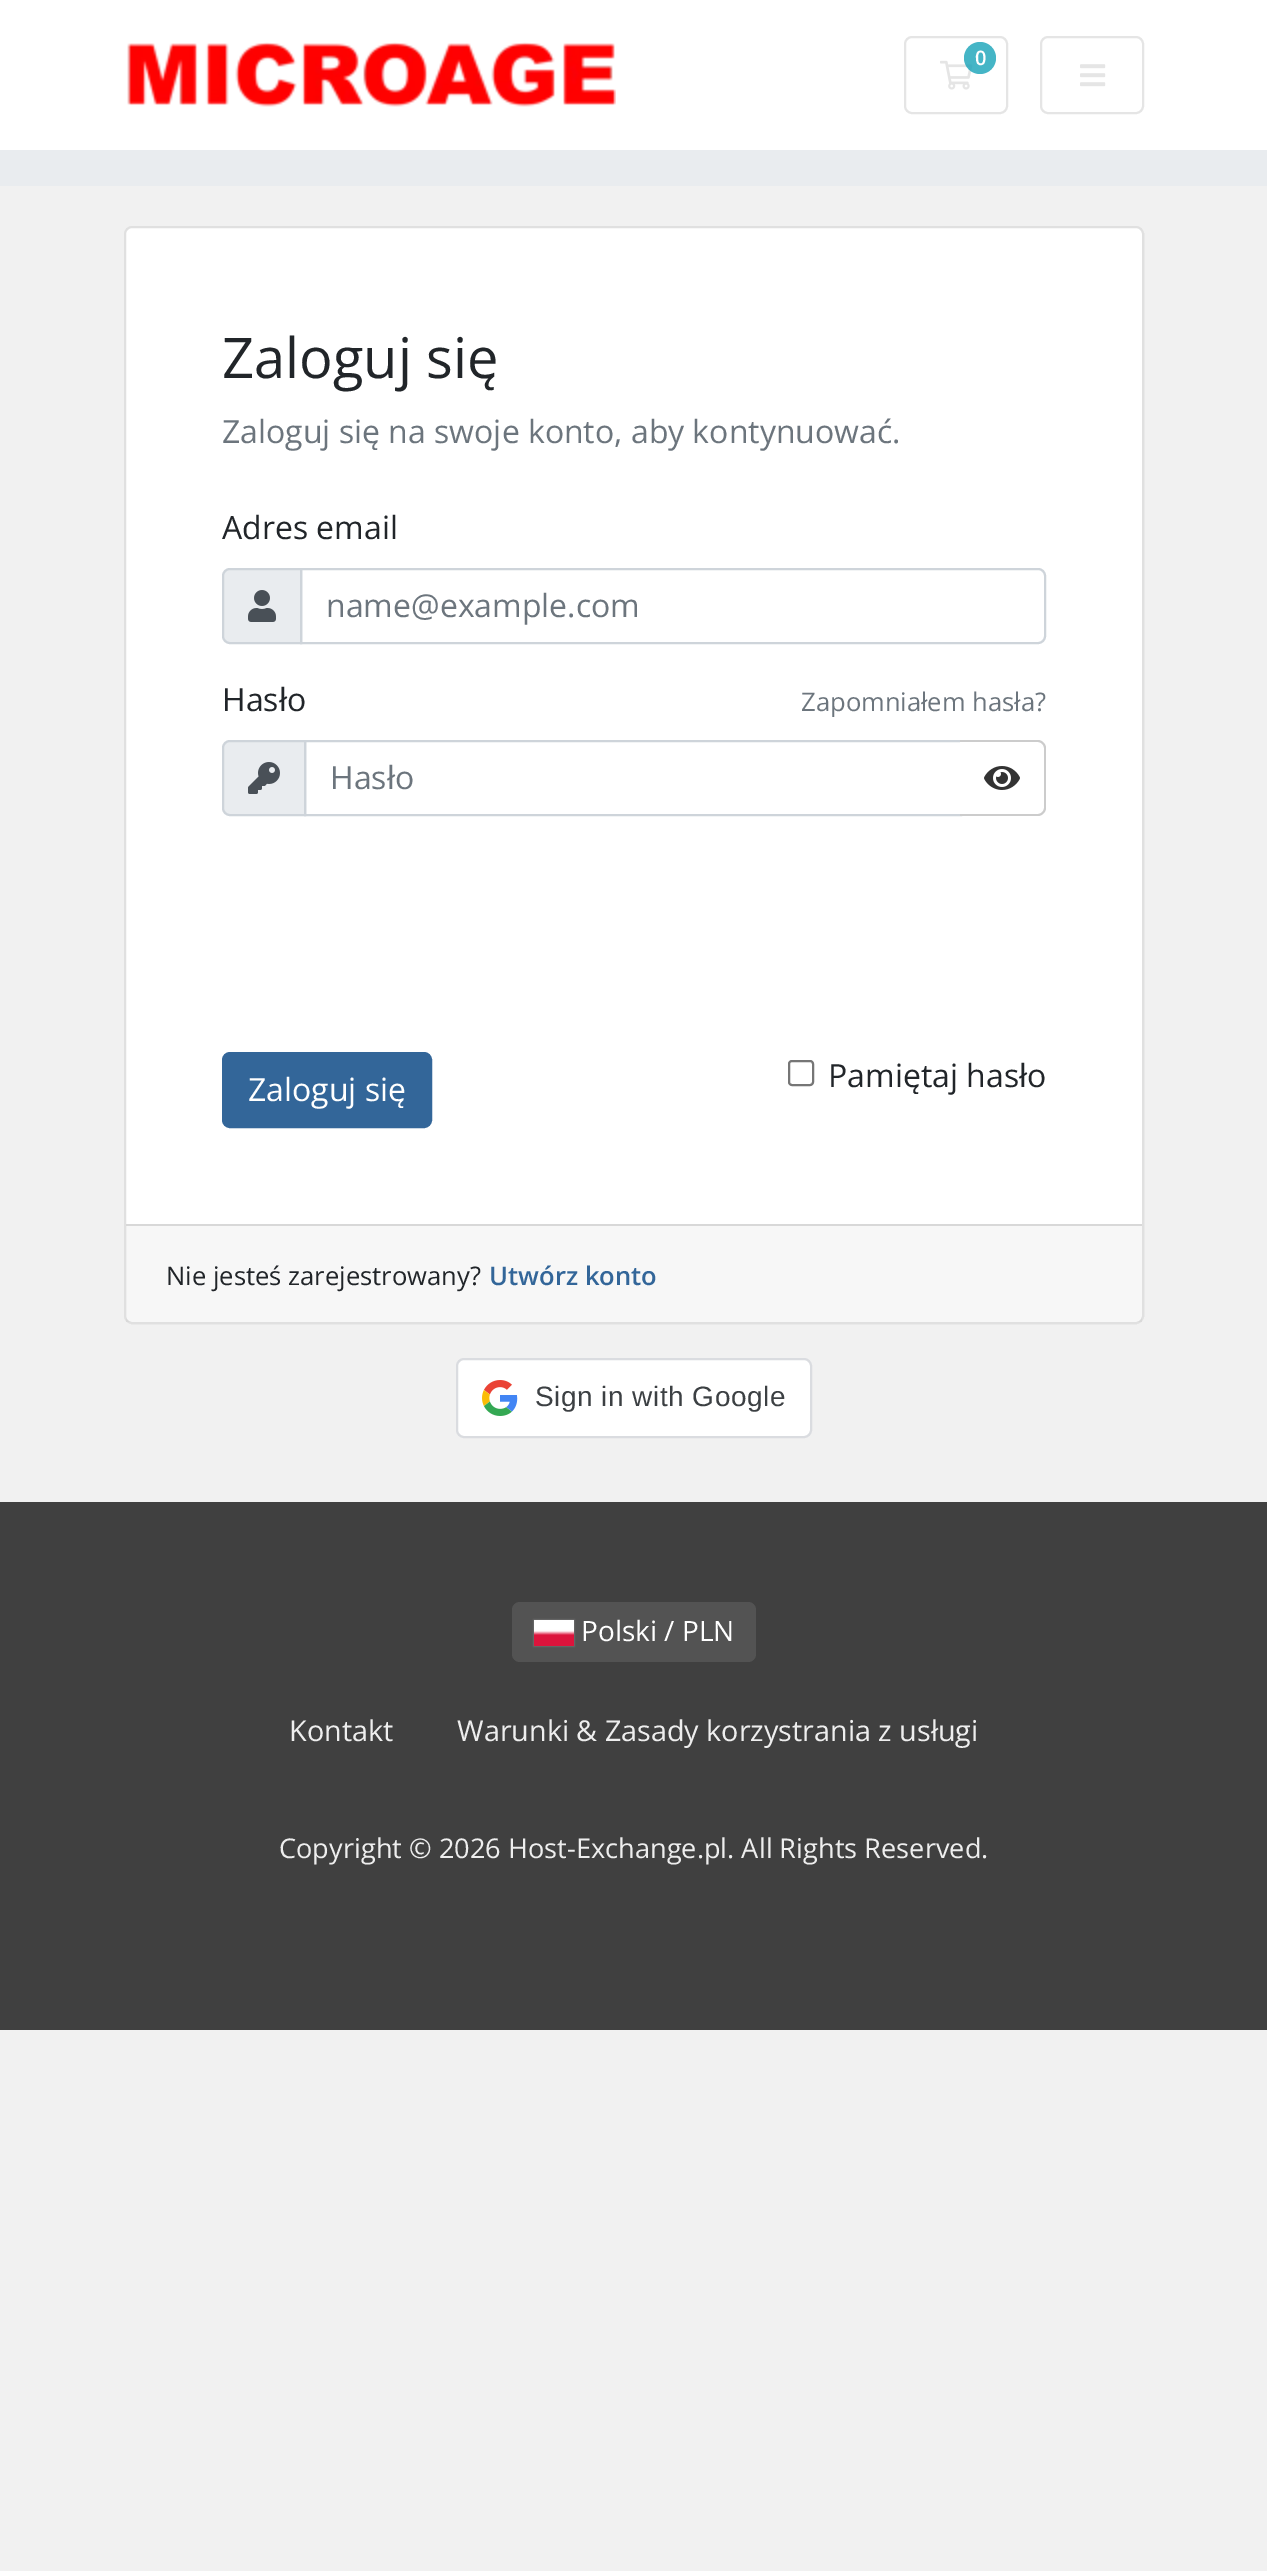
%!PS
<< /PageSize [1267 2571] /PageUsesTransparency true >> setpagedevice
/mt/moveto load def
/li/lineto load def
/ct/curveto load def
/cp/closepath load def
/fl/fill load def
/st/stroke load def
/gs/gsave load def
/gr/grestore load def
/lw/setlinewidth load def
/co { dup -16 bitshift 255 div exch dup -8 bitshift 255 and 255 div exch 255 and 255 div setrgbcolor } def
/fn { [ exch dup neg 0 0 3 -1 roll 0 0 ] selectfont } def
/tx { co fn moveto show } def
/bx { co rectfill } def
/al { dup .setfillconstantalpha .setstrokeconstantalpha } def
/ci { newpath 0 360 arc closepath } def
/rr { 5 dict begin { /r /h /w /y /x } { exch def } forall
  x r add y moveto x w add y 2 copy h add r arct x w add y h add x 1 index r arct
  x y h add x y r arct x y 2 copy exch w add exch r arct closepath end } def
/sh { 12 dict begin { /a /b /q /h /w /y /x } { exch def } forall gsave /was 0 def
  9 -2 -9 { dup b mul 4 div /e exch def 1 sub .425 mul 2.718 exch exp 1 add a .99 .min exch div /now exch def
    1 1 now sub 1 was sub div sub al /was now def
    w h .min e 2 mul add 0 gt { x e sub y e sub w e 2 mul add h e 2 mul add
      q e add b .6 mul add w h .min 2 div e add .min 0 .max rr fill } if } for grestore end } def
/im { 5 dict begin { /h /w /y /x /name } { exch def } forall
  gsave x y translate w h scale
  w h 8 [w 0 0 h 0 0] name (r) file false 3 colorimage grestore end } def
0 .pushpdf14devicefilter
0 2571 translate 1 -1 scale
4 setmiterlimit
0 0 1267 2571 16#F1F1F1 bx
0 0 1267 150 16#FFFFFF bx
(media/1.raw) 127 42 489 65 im
16#E5E5E5 co
2 lw
905 37 102 76 7 rr st
(media/2.raw) 940 60 33 30 im
0.8 al
16#17A2B8 co
980 58 16 ci fl
1 al
16#E5E5E5 co
1041 37 102 76 7 rr st
(media/3.raw) 1080 64 26 23 im
0 150 1267 36 16#E9ECEF bx
16#FFFFFF co
124 226 1020 1098 8 rr fl
0.12 al
16#000000 co
125 227 1018 1096 7 rr st
1 al
16#E9ECEF co
230 569 mt 301 569 li 301 643 li 230 643 li 226 643 223 640 223 636 ct 223 576 li 223 572 226 569 230 569 ct cp gs fl gr
16#CED4DA co
st
(media/4.raw) 248 590 28 32 im
301 569 mt 1038 569 li 1042 569 1045 572 1045 576 ct 1045 636 li 1045 640 1042 643 1038 643 ct 301 643 li cp st
16#E9ECEF co
230 741 mt 305 741 li 305 815 li 230 815 li 226 815 223 812 223 808 ct 223 748 li 223 744 226 741 230 741 ct cp gs fl gr
16#CED4DA co
st
(media/5.raw) 248 762 32 32 im
305 741 656 74 rectstroke
16#FFFFFF co
960 740 mt 1038 740 li 1042.5 740 1046 743.5 1046 748 ct 1046 808 li 1046 812.5 1042.5 816 1038 816 ct 960 816 li cp fl
16#CCCCCC co
960 740 mt 1038 740 li 1042 740 1046 744 1046 748 ct 1046 808 li 1046 812 1042 816 1038 816 ct 960 816 li cp 960 742 mt 1038 742 li 1041 742 1044 745 1044 748 ct 1044 808 li 1044 811 1041 814 1038 814 ct 960 814 li cp eofill
(media/6.raw) 984 766 36 24 im
16#336699 co
223 1053 208 74 7 rr gs fl gr
st
16#767676 co
789 1061 24 24 3 rr st
0.03 al
126 1226 1016 96 16#000000 bx
1 al
126 1224 1016 2 16#D8D8D8 bx
16#FFFFFF co
457 1359 354 78 7 rr gs fl gr
16#DADCE0 co
st
(media/7.raw) 482 1380 36 36 im
0 1502 1267 528 16#404040 bx
16#535353 co
512 1602 244 60 8 rr fl
16#888888 co
534 1620 40 26 0 1 1 sh
(media/8.raw) 534 1620 40 26 im
(0) 975 65 /OpenSans-SemiBold 20 16#FFFFFF tx
(Zaloguj się) 222 378 /OpenSans-Regular 56 16#212529 tx
(Zaloguj się na swoje konto, aby kontynuować.) 222 443 /OpenSans-Regular 32 16#6C757D tx
(Adres email) 222 539 /OpenSans-Regular 32 16#212529 tx
(name@example.com) 326 617 /OpenSans-Regular 32 16#6C757D tx
(Hasło) 222 711 /OpenSans-Regular 32 16#212529 tx
(Zapomniałem hasła?) 801 711 /OpenSans-Regular 25.6 16#6C757D tx
(Hasło) 330 789 /OpenSans-Regular 32 16#6C757D tx
(Zaloguj się) 248 1101 /OpenSans-Regular 32 16#FFFFFF tx
(Pamiętaj hasło) 828 1087 /OpenSans-Regular 32 16#212529 tx
(Nie jesteś zarejestrowany?) 166 1285 /OpenSans-Regular 25.6 16#212529 tx
(Utwórz konto) 489 1285 /OpenSans-SemiBold 25.6 16#336699 tx
/LiberationSans-Regular 28 fn
16#3C4043 co
535 1406 mt .5 0 (Sign in with Google) ashow
(Polski / PLN) 581 1641 /OpenSans-Regular 28 16#FFFFFF tx
(Kontakt) 289 1741 /OpenSans-Regular 28.75 16#EEEEEE tx
(Warunki & Zasady korzystrania z usługi) 457 1741 /OpenSans-Regular 28.75 16#EEEEEE tx
(Copyright © 2026 Host-Exchange.pl. All Rights Reserved.) 279 1858 /OpenSans-Regular 27.2 16#EEEEEE tx
.poppdf14devicefilter showpage
